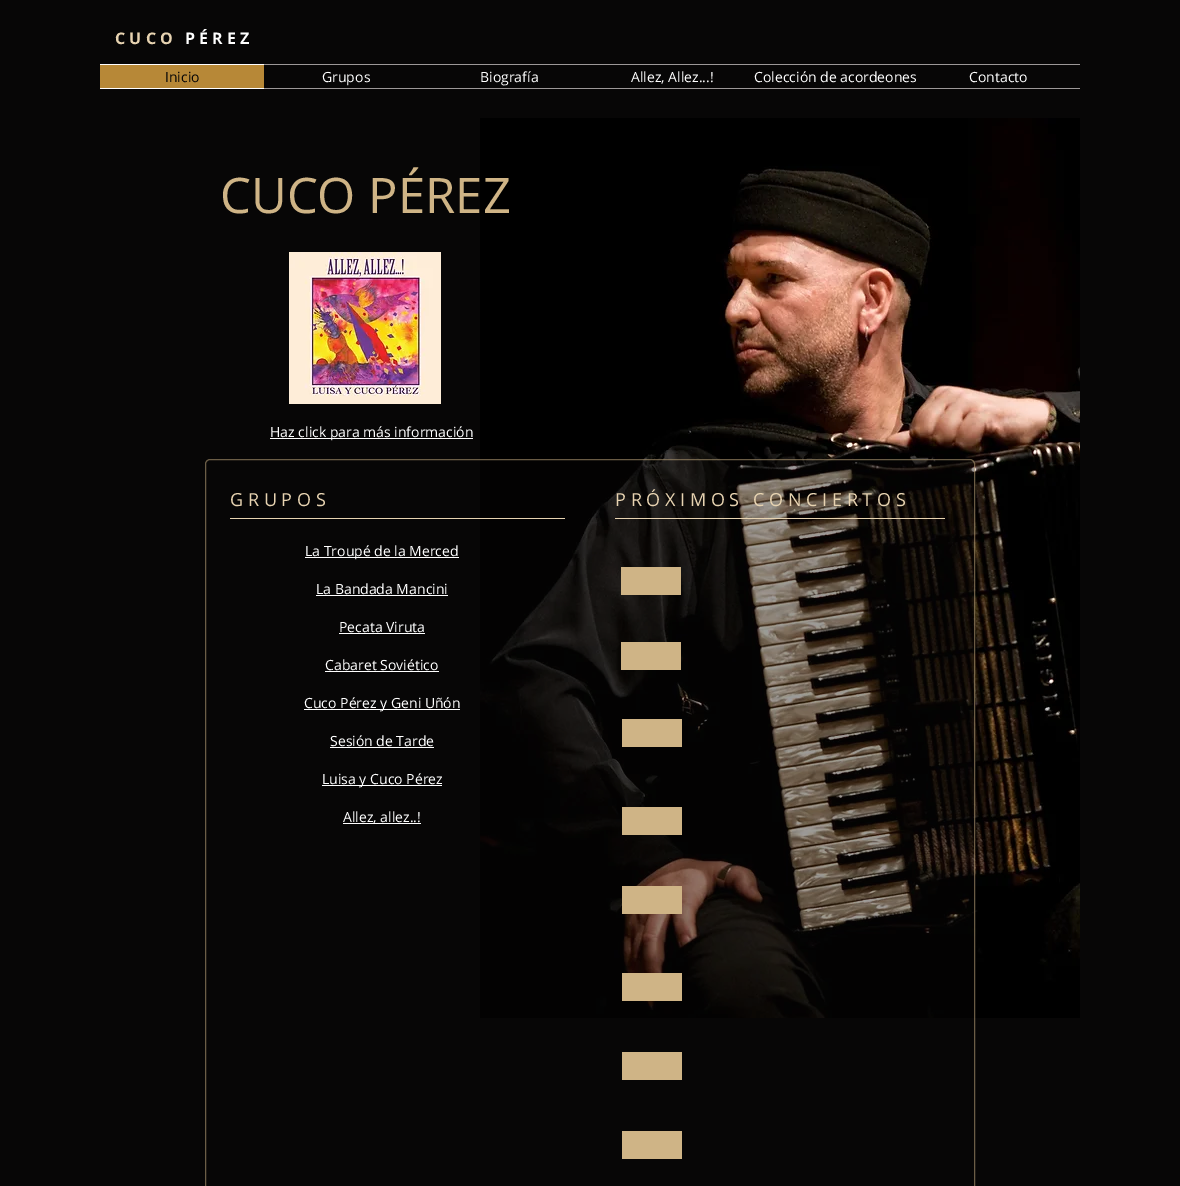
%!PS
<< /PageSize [1180 1186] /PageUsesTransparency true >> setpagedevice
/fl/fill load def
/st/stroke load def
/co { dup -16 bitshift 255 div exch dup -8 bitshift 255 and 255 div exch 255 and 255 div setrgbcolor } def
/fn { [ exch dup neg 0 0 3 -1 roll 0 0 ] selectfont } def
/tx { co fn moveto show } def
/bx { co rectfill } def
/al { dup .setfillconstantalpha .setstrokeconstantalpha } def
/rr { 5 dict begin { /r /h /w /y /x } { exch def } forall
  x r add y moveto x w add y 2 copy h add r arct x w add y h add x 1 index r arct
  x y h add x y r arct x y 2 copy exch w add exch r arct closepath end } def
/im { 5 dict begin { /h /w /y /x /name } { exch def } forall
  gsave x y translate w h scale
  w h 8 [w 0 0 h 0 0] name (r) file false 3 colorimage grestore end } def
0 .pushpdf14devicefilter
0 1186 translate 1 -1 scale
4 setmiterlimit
0 0 1180 1186 16#070606 bx
100 65 164 23 16#B78837 bx
100 64 164 1 16#FFFFFF bx
100 88 164 1 16#FFFFFF bx
264 64 816 1 16#9C9797 bx
264 88 816 1 16#9C9797 bx
(media/1.raw) 480 118 600 900 im
(media/2.raw) 289 252 152 152 im
270 438 203 1 16#FFFFFF bx
0.4 al
16#070606 co
205 459 770 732 5 rr fl
0.5 al
16#CFB486 co
205.5 459.5 769 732 4.5 rr st
1 al
230 518 335 1 16#E7D3B1 bx
615 518 330 1 16#E7D3B1 bx
305 557 154 1 16#FFFFFF bx
316 595 132 1 16#FFFFFF bx
339 633 86 1 16#FFFFFF bx
325 671 114 1 16#FFFFFF bx
304 709 156 1 16#FFFFFF bx
330 747 104 1 16#FFFFFF bx
322 785 120 1 16#FFFFFF bx
343 823 78 1 16#FFFFFF bx
621 567 60 28 16#CFB486 bx
621 642 60 28 16#CFB486 bx
622 719 60 28 16#CFB486 bx
622 807 60 28 16#CFB486 bx
622 886 60 28 16#CFB486 bx
622 973 60 28 16#CFB486 bx
622 1052 60 28 16#CFB486 bx
622 1131 60 28 16#CFB486 bx
(C U C O) 115 44 /OpenSans-Bold 16 16#E7D3B1 tx
(P É R E Z) 185 44 /OpenSans-Bold 16 16#FFFFFF tx
(Inicio) 165 82 /OpenSans-Regular 14 16#070606 tx
(Grupos) 322 82 /OpenSans-Regular 14 16#FFFFFF tx
(Biografía) 480 82 /OpenSans-Regular 14 16#FFFFFF tx
(Allez, Allez...!) 631 82 /OpenSans-Regular 14 16#FFFFFF tx
(Colección de acordeones) 754 82 /OpenSans-Regular 14 16#FFFFFF tx
(Contacto) 969 82 /OpenSans-Regular 14 16#FFFFFF tx
(CUCO PÉREZ) 220 213 /OpenSans-Regular 49 16#CFB486 tx
(Haz click para más información) 270 437 /OpenSans-Regular 14 16#FFFFFF tx
(G R U P O S) 230 506 /OpenSans-Regular 18 16#E7D3B1 tx
(P R Ó X I M O S   C O N C I E R T O S) 615 506 /OpenSans-Regular 18 16#E7D3B1 tx
(La Troupé de la Merced) 305 556 /OpenSans-Regular 14 16#FFFFFF tx
(La Bandada Mancini) 316 594 /OpenSans-Regular 14 16#FFFFFF tx
(Pecata Viruta) 339 632 /OpenSans-Regular 14 16#FFFFFF tx
(Cabaret Soviético) 325 670 /OpenSans-Regular 14 16#FFFFFF tx
(Cuco Pérez y Geni Uñón) 304 708 /OpenSans-Regular 14 16#FFFFFF tx
(Sesión de Tarde) 330 746 /OpenSans-Regular 14 16#FFFFFF tx
(Luisa y Cuco Pérez) 322 784 /OpenSans-Regular 14 16#FFFFFF tx
(Allez, allez..!) 343 822 /OpenSans-Regular 14 16#FFFFFF tx
.poppdf14devicefilter showpage
